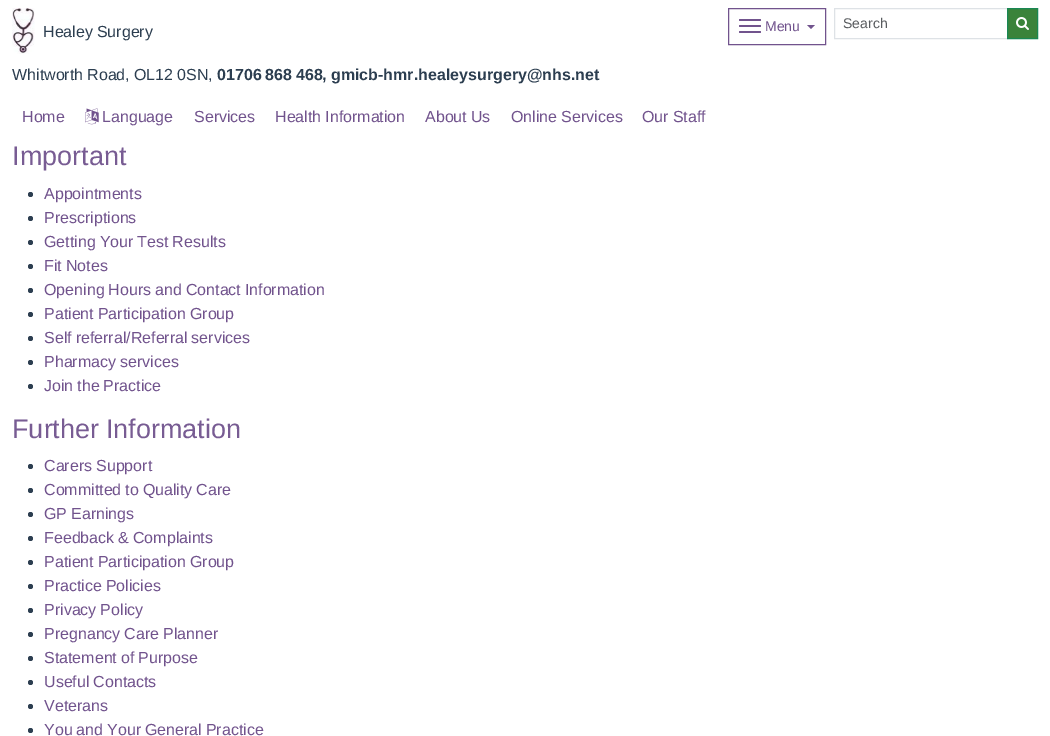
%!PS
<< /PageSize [1050 736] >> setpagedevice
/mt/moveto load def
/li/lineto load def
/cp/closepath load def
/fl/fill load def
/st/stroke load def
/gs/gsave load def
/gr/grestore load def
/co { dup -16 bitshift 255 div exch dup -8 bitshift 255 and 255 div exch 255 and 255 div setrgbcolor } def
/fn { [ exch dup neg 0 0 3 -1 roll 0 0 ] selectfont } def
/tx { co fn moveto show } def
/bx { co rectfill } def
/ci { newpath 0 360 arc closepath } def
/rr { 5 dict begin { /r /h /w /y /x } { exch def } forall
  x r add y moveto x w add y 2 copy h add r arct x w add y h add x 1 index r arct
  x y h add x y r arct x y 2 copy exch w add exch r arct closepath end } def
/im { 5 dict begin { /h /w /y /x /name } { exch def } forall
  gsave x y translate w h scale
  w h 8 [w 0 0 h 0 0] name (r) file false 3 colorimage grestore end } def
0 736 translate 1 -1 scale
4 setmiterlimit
0 0 1050 736 16#FFFFFF bx
(media/1.raw) 12 8 23 46 im
16#71538D co
728.5 8.5 97 36 rectstroke
739 19 22 2 1 rr fl
739 25 22 2 1 rr fl
739 31 22 2 1 rr fl
807 25 mt 815 25 li 811 29 li cp fl
16#DEE2E6 co
834.5 8.5 173 30 rectstroke
16#3A833A co
1007.5 8.5 mt 1037.5 8.5 li 1037.5 38.5 li 1007.5 38.5 li cp gs fl gr
16#198754 co
st
(media/2.raw) 1016 17 13 13 im
(media/3.raw) 85 108 14 17 im
16#2C3E50 co
30.5 194.5 2.5 ci fl
30.5 218.5 2.5 ci fl
30.5 242.5 2.5 ci fl
30.5 266.5 2.5 ci fl
30.5 290.5 2.5 ci fl
30.5 314.5 2.5 ci fl
30.5 338.5 2.5 ci fl
30.5 362.5 2.5 ci fl
30.5 386.5 2.5 ci fl
30.5 466.5 2.5 ci fl
30.5 490.5 2.5 ci fl
30.5 514.5 2.5 ci fl
30.5 538.5 2.5 ci fl
30.5 562.5 2.5 ci fl
30.5 586.5 2.5 ci fl
30.5 610.5 2.5 ci fl
30.5 634.5 2.5 ci fl
30.5 658.5 2.5 ci fl
30.5 682.5 2.5 ci fl
30.5 706.5 2.5 ci fl
30.5 730.5 2.5 ci fl
/LiberationSans-Regular 16 fn
43 37 mt -.5 0 32 (Healey Surgery) widthshow
(Menu) 765 31 /LiberationSans-Regular 14 16#71538D tx
(Search) 843 28 /LiberationSans-Regular 14 16#595C5F tx
/LiberationSans-Regular 16 fn
16#2C3E50 co
12 80 mt -.5 0 32 (Whitworth Road) widthshow
(,) 125 80 /LiberationSans-Regular 16 16#2C3E50 tx
134 80 mt -.5 0 32 (OL12 0SN) widthshow
(,) 208 80 /LiberationSans-Regular 16 16#2C3E50 tx
/LiberationSans-Bold 16 fn
217 80 mt -.5 0 32 (01706 868 468) widthshow
(,) 322 80 /LiberationSans-Bold 16 16#2C3E50 tx
(gmicb-hmr.healeysurgery@nhs.net) 331 80 /LiberationSans-Bold 16 16#2C3E50 tx
(Home) 22 122 /LiberationSans-Regular 16 16#71538D tx
(Language) 102 122 /LiberationSans-Regular 16 16#71538D tx
(Services) 194 122 /LiberationSans-Regular 16 16#71538D tx
275 122 mt -.5 0 32 (Health Information) widthshow
425 122 mt -.5 0 32 (About Us) widthshow
511 122 mt -.5 0 32 (Online Services) widthshow
642 122 mt -.5 0 32 (Our Staff) widthshow
(Important) 12 165 /LiberationSans-Regular 27 16#785C93 tx
(Appointments) 44 199 /LiberationSans-Regular 16 16#71538D tx
(Prescriptions) 44 223 /LiberationSans-Regular 16 16#71538D tx
44 247 mt -.5 0 32 (Getting Your Test Results) widthshow
44 271 mt -.5 0 32 (Fit Notes) widthshow
44 295 mt -.5 0 32 (Opening Hours and Contact Information) widthshow
44 319 mt -.5 0 32 (Patient Participation Group) widthshow
44 343 mt -.5 0 32 (Self referral/Referral services) widthshow
44 367 mt -.5 0 32 (Pharmacy services) widthshow
44 391 mt -.5 0 32 (Join the Practice) widthshow
/LiberationSans-Regular 27 fn
16#785C93 co
12 438 mt -1 0 32 (Further Information) widthshow
/LiberationSans-Regular 16 fn
16#71538D co
44 471 mt -.5 0 32 (Carers Support) widthshow
44 495 mt -.5 0 32 (Committed to Quality Care) widthshow
44 519 mt -.5 0 32 (GP Earnings) widthshow
44 543 mt -.5 0 32 (Feedback & Complaints) widthshow
44 567 mt -.5 0 32 (Patient Participation Group) widthshow
44 591 mt -.5 0 32 (Practice Policies) widthshow
44 615 mt -.5 0 32 (Privacy Policy) widthshow
44 639 mt -.5 0 32 (Pregnancy Care Planner) widthshow
44 663 mt -.5 0 32 (Statement of Purpose) widthshow
44 687 mt -.5 0 32 (Useful Contacts) widthshow
(Veterans) 44 711 /LiberationSans-Regular 16 16#71538D tx
44 735 mt -.5 0 32 (You and Your General Practice) widthshow
showpage
